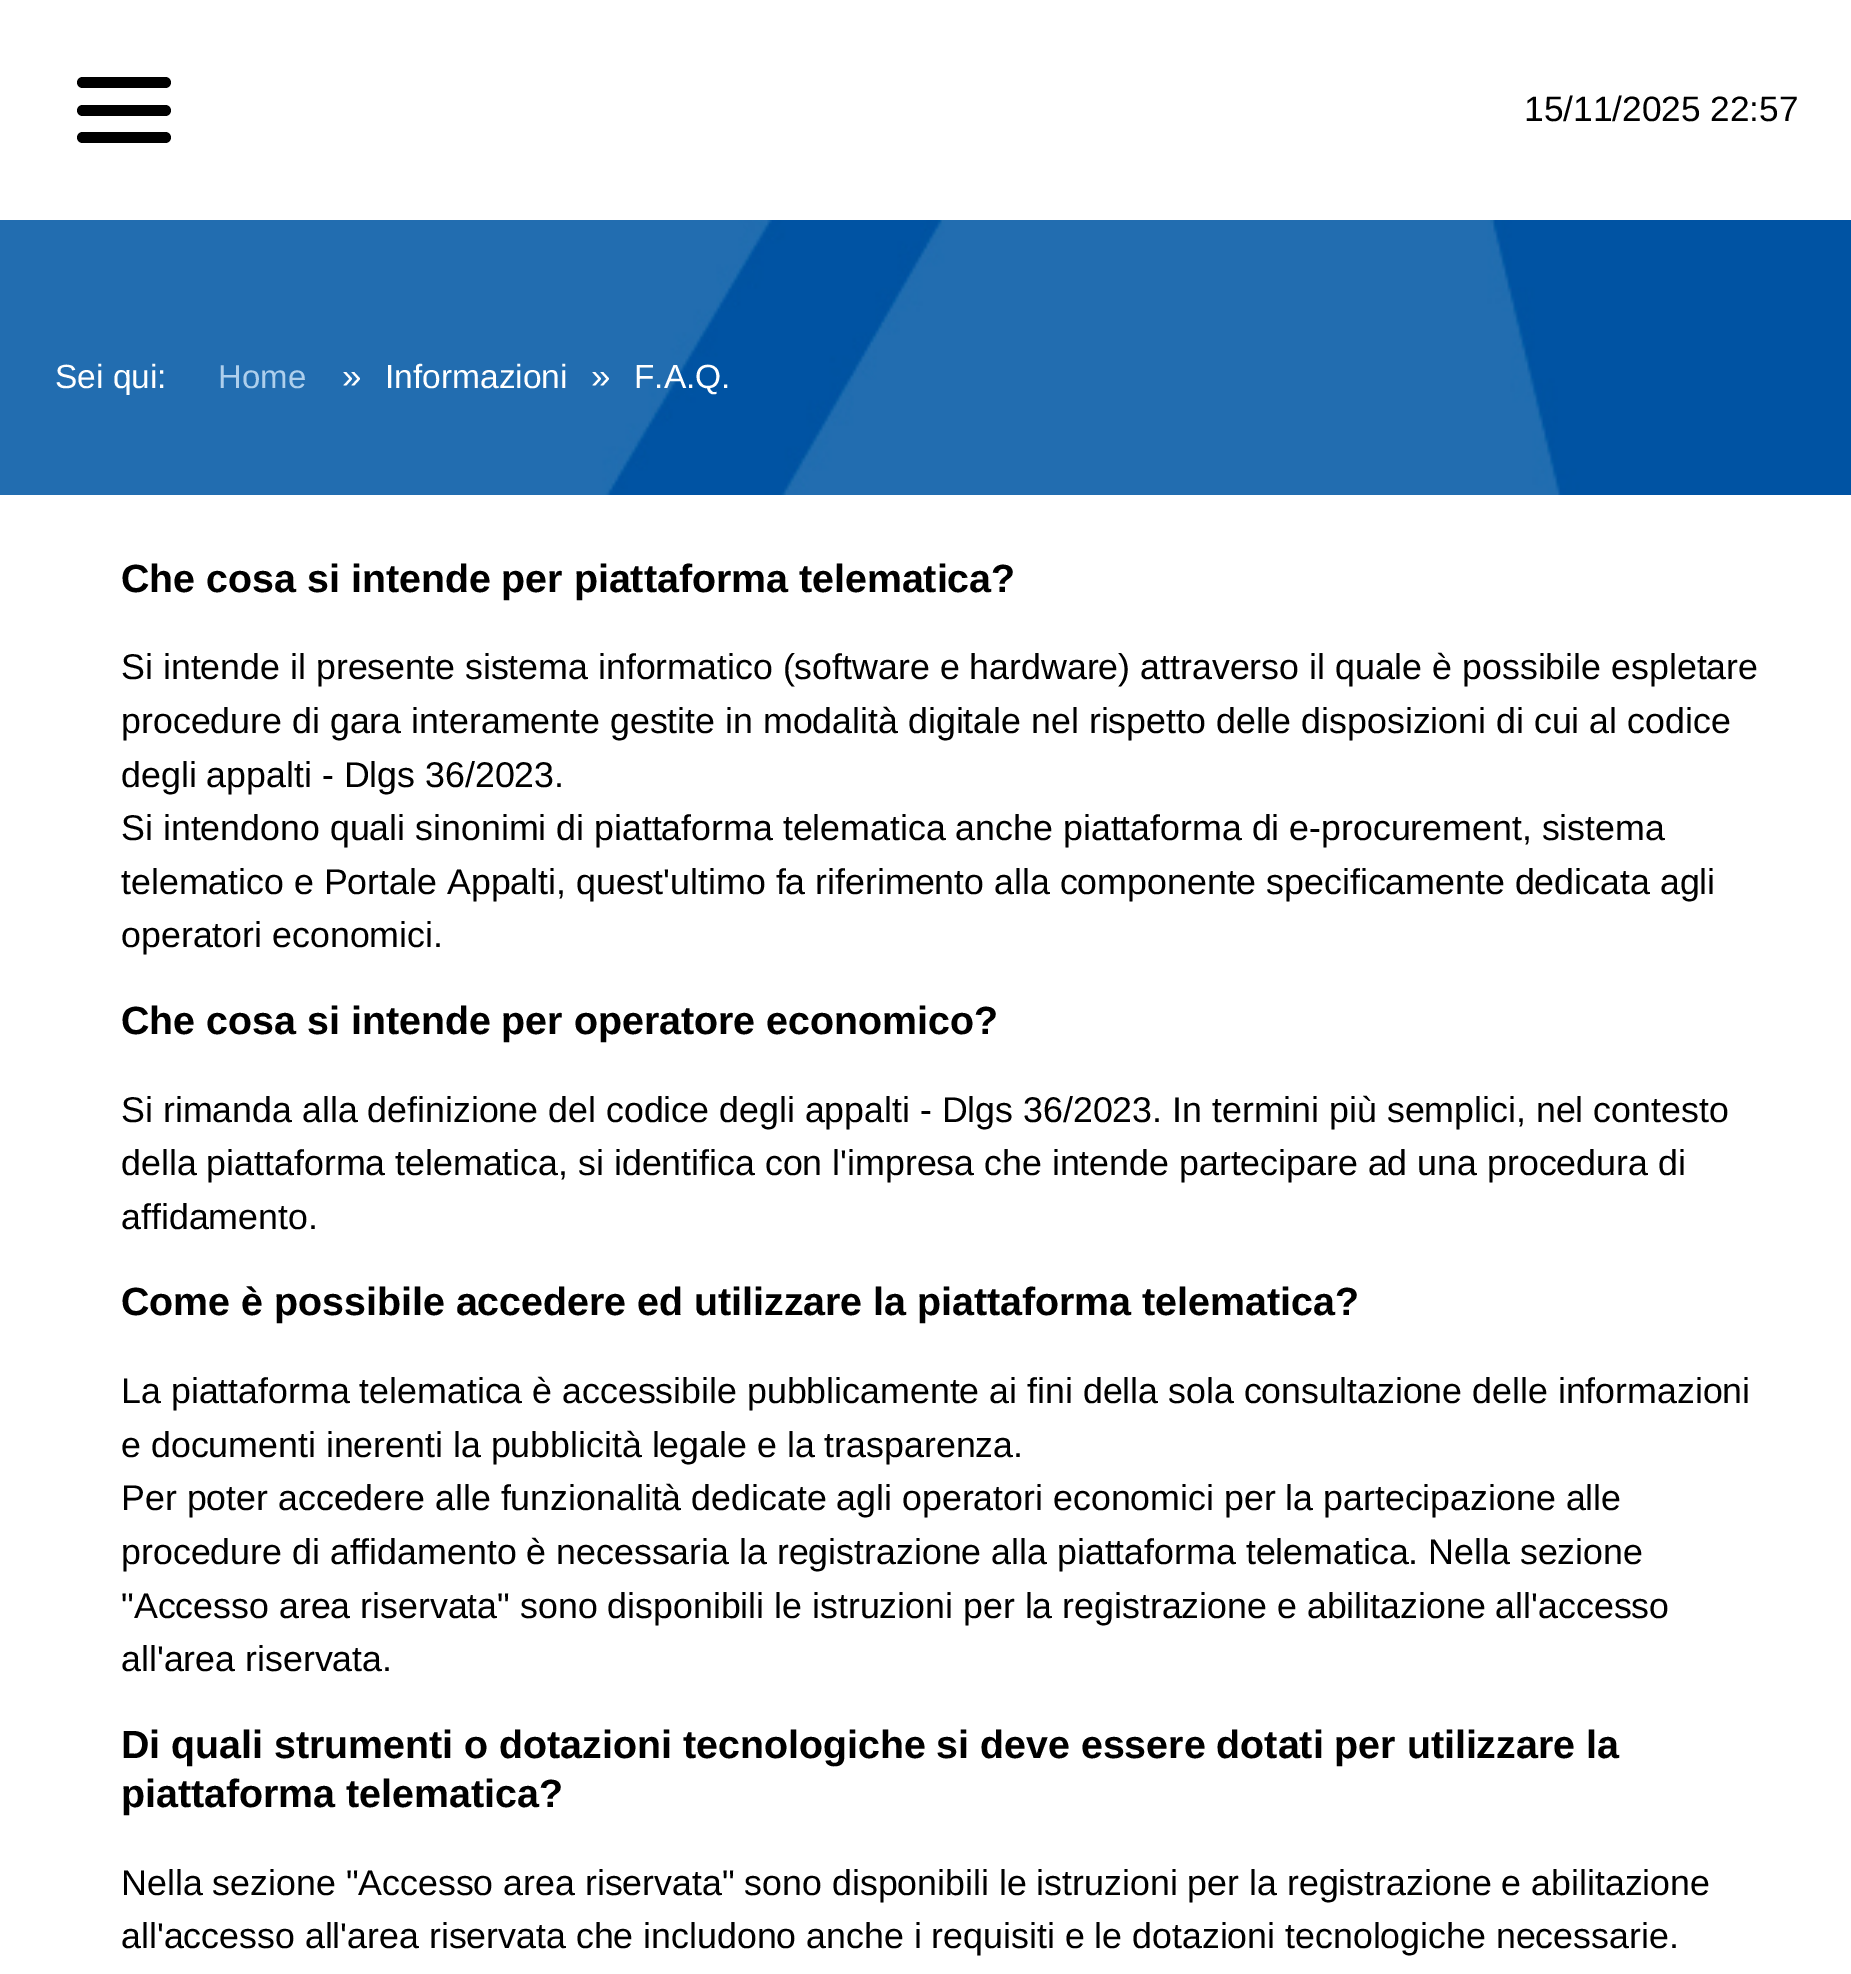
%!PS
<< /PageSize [1851 1974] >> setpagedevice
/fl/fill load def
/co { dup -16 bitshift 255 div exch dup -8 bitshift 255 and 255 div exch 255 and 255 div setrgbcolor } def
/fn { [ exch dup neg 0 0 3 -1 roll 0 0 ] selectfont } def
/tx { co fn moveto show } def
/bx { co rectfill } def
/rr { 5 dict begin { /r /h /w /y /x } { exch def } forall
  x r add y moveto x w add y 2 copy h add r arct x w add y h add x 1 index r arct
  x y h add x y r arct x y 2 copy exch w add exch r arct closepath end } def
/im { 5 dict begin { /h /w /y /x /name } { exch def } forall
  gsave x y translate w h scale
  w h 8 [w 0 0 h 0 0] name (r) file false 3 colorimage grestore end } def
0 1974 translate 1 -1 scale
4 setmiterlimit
0 0 1851 1974 16#FFFFFF bx
16#000000 co
77 77 94 11 5.5 rr fl
77 105 94 11 5.5 rr fl
77 132 94 11 5.5 rr fl
(media/1.raw) 0 220 1851 275 im
(15/11/2025 22:57) 1524 121 /LiberationSans-Regular 35.25 16#000000 tx
(Sei qui:) 55 388 /LiberationSans-Regular 33.5 16#FFFFFF tx
(Home) 218 388 /LiberationSans-Regular 33 16#AECFEC tx
(») 342 388 /LiberationSans-Regular 35 16#FFFFFF tx
(Informazioni) 385 388 /LiberationSans-Regular 33.5 16#FFFFFF tx
(») 591 388 /LiberationSans-Regular 35 16#FFFFFF tx
(F.A.Q.) 634 388 /LiberationSans-Regular 33.5 16#FFFFFF tx
(Che cosa si intende per piattaforma telematica?) 121 592 /LiberationSans-Bold 39.35 16#000000 tx
(Si intende il presente sistema informatico \(software e hardware\) attraverso il quale è possibile espletare) 121 679 /LiberationSans-Regular 35.75 16#000000 tx
(procedure di gara interamente gestite in modalità digitale nel rispetto delle disposizioni di cui al codice) 121 733 /LiberationSans-Regular 35.75 16#000000 tx
(degli appalti - Dlgs 36/2023.) 121 787 /LiberationSans-Regular 35.75 16#000000 tx
(Si intendono quali sinonimi di piattaforma telematica anche piattaforma di e-procurement, sistema) 121 840 /LiberationSans-Regular 35.75 16#000000 tx
(telematico e Portale Appalti, quest'ultimo fa riferimento alla componente specificamente dedicata agli) 121 894 /LiberationSans-Regular 35.75 16#000000 tx
(operatori economici.) 121 947 /LiberationSans-Regular 35.75 16#000000 tx
(Che cosa si intende per operatore economico?) 121 1034 /LiberationSans-Bold 39.35 16#000000 tx
(Si rimanda alla definizione del codice degli appalti - Dlgs 36/2023. In termini più semplici, nel contesto) 121 1122 /LiberationSans-Regular 35.75 16#000000 tx
(della piattaforma telematica, si identifica con l'impresa che intende partecipare ad una procedura di) 121 1175 /LiberationSans-Regular 35.75 16#000000 tx
(affidamento.) 121 1229 /LiberationSans-Regular 35.75 16#000000 tx
(Come è possibile accedere ed utilizzare la piattaforma telematica?) 121 1315 /LiberationSans-Bold 39.35 16#000000 tx
(La piattaforma telematica è accessibile pubblicamente ai fini della sola consultazione delle informazioni) 121 1403 /LiberationSans-Regular 35.75 16#000000 tx
(e documenti inerenti la pubblicità legale e la trasparenza.) 121 1457 /LiberationSans-Regular 35.75 16#000000 tx
(Per poter accedere alle funzionalità dedicate agli operatori economici per la partecipazione alle) 121 1510 /LiberationSans-Regular 35.75 16#000000 tx
(procedure di affidamento è necessaria la registrazione alla piattaforma telematica. Nella sezione) 121 1564 /LiberationSans-Regular 35.75 16#000000 tx
("Accesso area riservata" sono disponibili le istruzioni per la registrazione e abilitazione all'accesso) 121 1618 /LiberationSans-Regular 35.75 16#000000 tx
(all'area riservata.) 121 1671 /LiberationSans-Regular 35.75 16#000000 tx
(Di quali strumenti o dotazioni tecnologiche si deve essere dotati per utilizzare la) 121 1758 /LiberationSans-Bold 39.35 16#000000 tx
(piattaforma telematica?) 121 1807 /LiberationSans-Bold 39.35 16#000000 tx
(Nella sezione "Accesso area riservata" sono disponibili le istruzioni per la registrazione e abilitazione) 121 1895 /LiberationSans-Regular 35.75 16#000000 tx
(all'accesso all'area riservata che includono anche i requisiti e le dotazioni tecnologiche necessarie.) 121 1948 /LiberationSans-Regular 35.75 16#000000 tx
showpage
